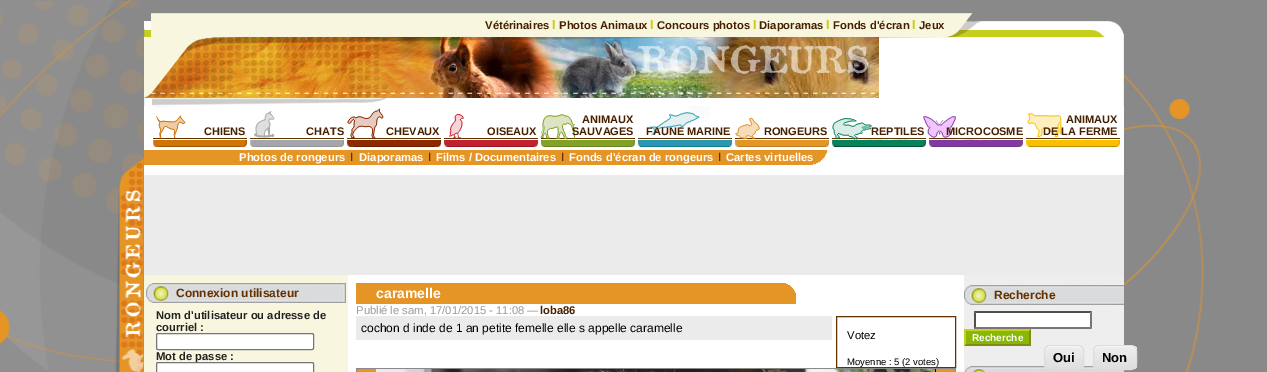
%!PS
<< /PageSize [1267 372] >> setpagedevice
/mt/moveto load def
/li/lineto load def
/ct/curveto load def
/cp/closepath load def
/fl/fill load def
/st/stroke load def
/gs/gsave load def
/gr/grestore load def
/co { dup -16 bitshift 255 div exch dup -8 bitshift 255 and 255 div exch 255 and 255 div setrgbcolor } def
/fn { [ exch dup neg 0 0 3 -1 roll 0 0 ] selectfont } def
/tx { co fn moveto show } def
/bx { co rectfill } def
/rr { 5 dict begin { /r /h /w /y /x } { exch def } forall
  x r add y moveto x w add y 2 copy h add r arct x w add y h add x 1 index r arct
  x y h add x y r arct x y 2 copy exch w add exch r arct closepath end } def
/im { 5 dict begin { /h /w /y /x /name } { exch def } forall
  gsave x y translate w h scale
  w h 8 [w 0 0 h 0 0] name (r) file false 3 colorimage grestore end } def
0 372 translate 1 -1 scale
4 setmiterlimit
0 0 1267 372 16#8A8989 bx
(media/1.raw) 0 0 1204 372 im
144 106 980 266 16#FFFFFF bx
(media/2.raw) 144 13 980 93 im
(media/3.raw) 144 37 735 61 im
(media/4.raw) 153 106 967 41 im
144 150 683 15 16#E49525 bx
(media/5.raw) 813 150 16 15 im
144 175 980 100 16#EBEBEB bx
144 275 204 97 16#F9F6DF bx
(media/6.raw) 146 283 200 20 im
16#FFFFFF co
156.5 333.5 157 16 1.5 rr gs fl gr
16#767676 co
st
356 283 440 21 16#E49525 bx
(media/7.raw) 786 283 10 10 im
356 316 476 24 16#EBEBEB bx
16#623100 co
836.5 316.5 119 51 rectstroke
356 369 600 3 16#E49525 bx
356 368 600 1 16#8A8989 bx
955 368 1 4 16#8A8989 bx
356 368 1 4 16#8A8989 bx
(media/8.raw) 376 369 560 3 im
964 275 160 97 16#EEEEEE bx
(media/9.raw) 964 285 160 20 im
974 311 118 18 16#FFFFFF bx
16#4F4F4F co
974 311 mt 1092 311 li 1090 313 li 976 313 li cp fl
16#767676 co
1092 311 mt 1092 329 li 1090 327 li 1090 313 li cp fl
1092 329 mt 974 329 li 976 327 li 1090 327 li cp fl
16#4F4F4F co
974 329 mt 974 311 li 976 313 li 976 327 li cp fl
964 329 67 17 16#88B705 bx
16#C4D11F co
964 329 mt 1031 329 li 1029 331 li 966 331 li cp fl
16#838B15 co
1031 329 mt 1031 346 li 1029 344 li 1029 331 li cp fl
1031 346 mt 964 346 li 966 344 li 1029 344 li cp fl
16#C4D11F co
964 346 mt 964 329 li 966 331 li 966 344 li cp fl
(media/10.raw) 964 366 160 6 im
gs
1044 345 40 25 6 rr clip newpath
gs 1044 346 mt 1084 346 li 1084 369 li 1044 369 li cp clip newpath
<< /ShadingType 2 /ColorSpace /DeviceRGB /Coords [1045 346 1045 369] /Extend [true true] /Function << /FunctionType 3 /Domain [0 1] /Functions [<< /FunctionType 2 /Domain [0 1] /C0 [.929 .929 .929] /C1 [.929 .929 .929] /N 1 >> << /FunctionType 2 /Domain [0 1] /C0 [.929 .929 .929] /C1 [.875 .875 .875] /N 1 >>] /Bounds [.05] /Encode [0 1 0 1] >> >> shfill gr
gr
16#FFFFFF co
1050 347 mt 1073 347 li 1081.5 347 1083 348 1083 353 ct 1083 345.5 1079.5 346 1073.5 346 ct 1054.5 346 li 1048 346 1045 345.5 1045 353 ct 1045 350 1046 347 1050 347 ct cp 1083 364 mt 1083 365 li cp eofill
16#DCDCDC co
1044.5 345.5 39 24 5.5 rr st
gs
1093 345 44 25 6 rr clip newpath
gs 1093 346 mt 1137 346 li 1137 369 li 1093 369 li cp clip newpath
<< /ShadingType 2 /ColorSpace /DeviceRGB /Coords [1094 346 1094 369] /Extend [true true] /Function << /FunctionType 3 /Domain [0 1] /Functions [<< /FunctionType 2 /Domain [0 1] /C0 [.929 .929 .929] /C1 [.929 .929 .929] /N 1 >> << /FunctionType 2 /Domain [0 1] /C0 [.929 .929 .929] /C1 [.875 .875 .875] /N 1 >>] /Bounds [.05] /Encode [0 1 0 1] >> >> shfill gr
gr
16#FFFFFF co
1099 347 mt 1131 347 li 1134 347 1136 349 1136 352 ct 1136 345 1131 346 1126 346 ct 1104 346 li 1099 346 1094 345 1094 352 ct 1094 349 1096 347 1099 347 ct cp fl
16#DCDCDC co
1093.5 345.5 43 24 5.5 rr st
(Vétérinaires) 485 29 /LiberationSans-Bold 11.25 16#462000 tx
(I) 552 29 /LiberationSans-Bold 13 16#C6CF1D tx
(Photos Animaux) 559 29 /LiberationSans-Bold 11.25 16#462000 tx
(I) 650 29 /LiberationSans-Bold 13 16#C6CF1D tx
(Concours photos) 657 29 /LiberationSans-Bold 11.25 16#462000 tx
(I) 753 29 /LiberationSans-Bold 13 16#C6CF1D tx
(Diaporamas) 759 29 /LiberationSans-Bold 11.25 16#462000 tx
(I) 826 29 /LiberationSans-Bold 13 16#C6CF1D tx
(Fonds d'écran) 833 29 /LiberationSans-Bold 11.25 16#462000 tx
(I) 912 29 /LiberationSans-Bold 13 16#C6CF1D tx
(Jeux) 919 29 /LiberationSans-Bold 11.25 16#462000 tx
(CHIENS) 204 135 /LiberationSans-Bold 11 16#462000 tx
(CHATS) 306 135 /LiberationSans-Bold 11 16#462000 tx
(CHEVAUX) 386 135 /LiberationSans-Bold 11 16#462000 tx
(OISEAUX) 487 135 /LiberationSans-Bold 11 16#462000 tx
(ANIMAUX) 582 123 /LiberationSans-Bold 11 16#462000 tx
(SAUVAGES) 572 135 /LiberationSans-Bold 11 16#462000 tx
(FAUNE MARINE) 646 135 /LiberationSans-Bold 11 16#462000 tx
(RONGEURS) 764 135 /LiberationSans-Bold 11 16#462000 tx
(REPTILES) 871 135 /LiberationSans-Bold 11 16#462000 tx
(MICROCOSME) 946 135 /LiberationSans-Bold 11 16#462000 tx
(ANIMAUX) 1066 123 /LiberationSans-Bold 11 16#462000 tx
(DE LA FERME) 1043 135 /LiberationSans-Bold 11 16#462000 tx
(Photos de rongeurs) 239 161 /LiberationSans-Bold 11.25 16#FFFFFF tx
(I) 350 161 /LiberationSans-Regular 12 16#633100 tx
(Diaporamas) 359 161 /LiberationSans-Bold 11.25 16#FFFFFF tx
(I) 428 161 /LiberationSans-Regular 12 16#633100 tx
(Films / Documentaires) 436 161 /LiberationSans-Bold 11.25 16#FFFFFF tx
(I) 561 161 /LiberationSans-Regular 12 16#633100 tx
(Fonds d'écran de rongeurs) 569 161 /LiberationSans-Bold 11.25 16#FFFFFF tx
(I) 718 161 /LiberationSans-Regular 12 16#633100 tx
(Cartes virtuelles) 726 161 /LiberationSans-Bold 11.25 16#FFFFFF tx
(Connexion utilisateur) 176 297 /LiberationSans-Bold 12 16#633100 tx
(Nom d'utilisateur ou adresse de) 156 319 /LiberationSans-Bold 11.25 16#222222 tx
(courriel :) 156 331 /LiberationSans-Bold 11.25 16#222222 tx
(Mot de passe :) 156 360 /LiberationSans-Bold 11.25 16#222222 tx
16#FFFFFF co
156.5 362.5 157 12 1.5 rr gs fl gr
16#767676 co
st
(caramelle) 376 298 /LiberationSans-Bold 14 16#FFFFFF tx
(Publié le sam, 17/01/2015 - 11:08 —) 356 314 /LiberationSans-Regular 11.25 16#999999 tx
(loba86) 540 314 /LiberationSans-Bold 11.25 16#462000 tx
(cochon d inde de 1 an petite femelle elle s appelle caramelle) 361 332 /LiberationSans-Regular 12 16#000000 tx
(Votez) 847 339 /LiberationSans-Regular 11.25 16#000000 tx
(Moyenne : 5 \(2 votes\)) 847 365 /LiberationSans-Regular 9.5 16#000000 tx
(Recherche) 994 299 /LiberationSans-Bold 12 16#633100 tx
(Recherche) 972 341 /LiberationSans-Bold 10 16#FFFFFF tx
(Oui) 1053 362 /LiberationSans-Bold 13 16#000000 tx
(Non) 1102 362 /LiberationSans-Bold 13 16#000000 tx
showpage
